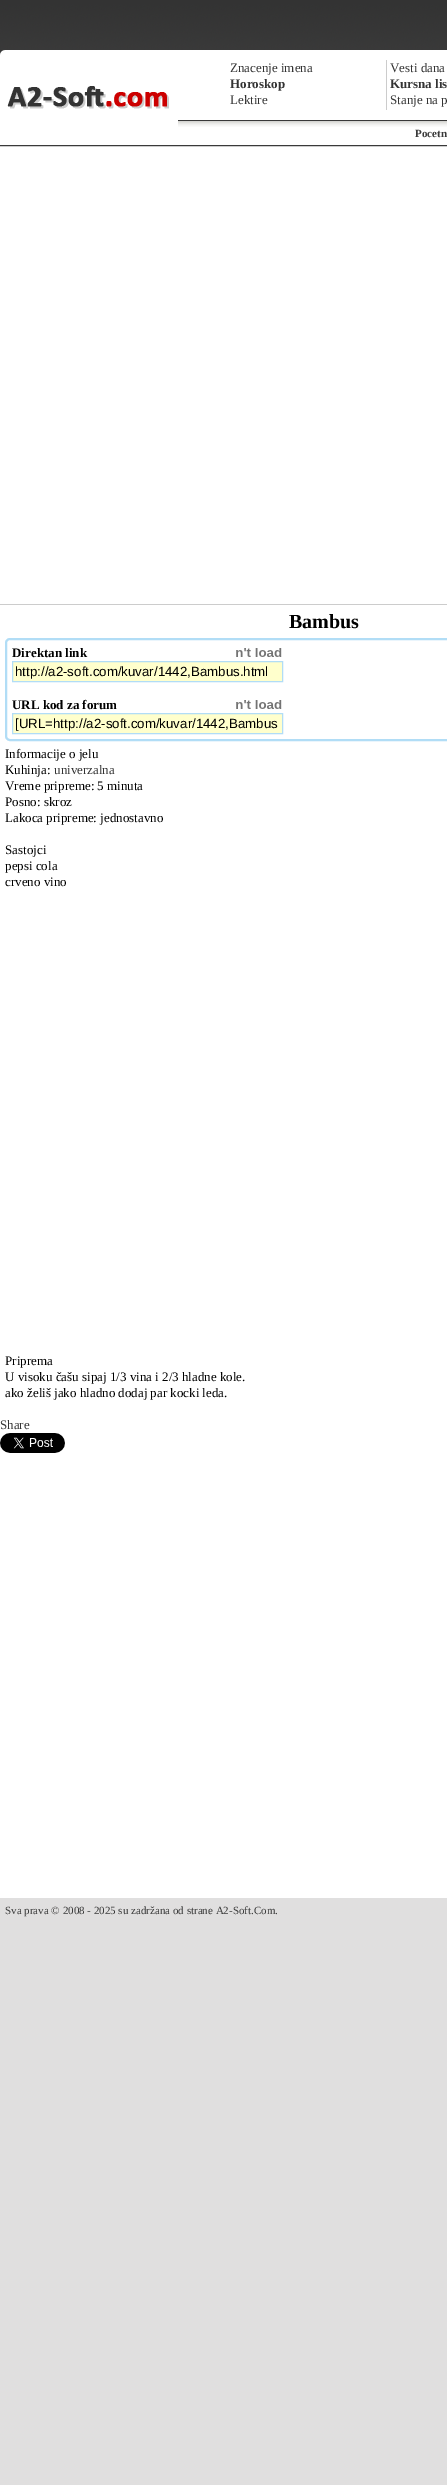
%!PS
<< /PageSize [447 2485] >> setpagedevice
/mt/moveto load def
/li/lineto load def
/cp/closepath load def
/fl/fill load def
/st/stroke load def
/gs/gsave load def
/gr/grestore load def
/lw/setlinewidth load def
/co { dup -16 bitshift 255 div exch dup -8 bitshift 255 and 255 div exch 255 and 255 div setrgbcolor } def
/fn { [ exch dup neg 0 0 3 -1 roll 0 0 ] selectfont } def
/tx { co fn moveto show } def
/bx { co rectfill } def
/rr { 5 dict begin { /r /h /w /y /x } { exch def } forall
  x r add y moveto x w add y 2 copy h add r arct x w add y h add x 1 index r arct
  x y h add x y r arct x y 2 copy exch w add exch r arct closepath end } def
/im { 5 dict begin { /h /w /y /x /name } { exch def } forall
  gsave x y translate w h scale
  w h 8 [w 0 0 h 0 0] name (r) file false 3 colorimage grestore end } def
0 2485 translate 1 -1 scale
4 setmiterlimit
0 0 447 2485 16#E0DFDF bx
(media/1.raw) 0 0 447 50 im
(media/2.raw) 0 50 447 97 im
0 147 447 457 16#FFFFFF bx
0 604 447 1 16#CCCCCC bx
0 605 447 1293 16#FFFFFF bx
16#B1DDF6 co
2 lw
6 639 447 101 4 rr st
(media/3.raw) 236 648 46 9 im
16#FFFFCC co
12.5 661.5 mt 282.5 661.5 li 282.5 681.5 li 12.5 681.5 li cp gs fl gr
16#B1DDF6 co
1 lw
st
(media/3.raw) 236 700 46 9 im
16#FFFFCC co
12.5 713.5 mt 282.5 713.5 li 282.5 733.5 li 12.5 733.5 li cp gs fl gr
16#B1DDF6 co
st
(media/4.raw) 0 1433 65 20 im
(Znacenje imena) 230 72 /LiberationSerif-Regular 13 16#333333 tx
(Horoskop) 230 88 /LiberationSerif-Bold 13 16#333333 tx
(Lektire) 230 104 /LiberationSerif-Regular 13 16#333333 tx
(Vesti dana) 390 72 /LiberationSerif-Regular 13 16#333333 tx
(Kursna lis) 390 88 /LiberationSerif-Bold 13 16#333333 tx
(Stanje na p) 390 104 /LiberationSerif-Regular 13 16#333333 tx
(Pocetn) 415 137 /LiberationSerif-Bold 11 16#393939 tx
(Bambus) 289 628 /LiberationSerif-Bold 20 16#000000 tx
(Direktan link) 12 657 /LiberationSerif-Bold 13 16#000000 tx
(http://a2-soft.com/kuvar/1442,Bambus.html) 15 676 /LiberationSans-Regular 13.3 16#000000 tx
(URL kod za forum) 12 709 /LiberationSerif-Bold 13 16#000000 tx
([URL=http://a2-soft.com/kuvar/1442,Bambus) 15 728 /LiberationSans-Regular 13.3 16#000000 tx
(Informacije o jelu) 5 758 /LiberationSerif-Regular 13 16#000000 tx
(Kuhinja:) 5 774 /LiberationSerif-Regular 13 16#000000 tx
(univerzalna) 54 774 /LiberationSerif-Regular 13 16#333333 tx
(Vreme pripreme: 5 minuta) 5 790 /LiberationSerif-Regular 13 16#000000 tx
(Posno: skroz) 5 806 /LiberationSerif-Regular 13 16#000000 tx
(Lakoca pripreme: jednostavno) 5 822 /LiberationSerif-Regular 13 16#000000 tx
(Sastojci) 5 854 /LiberationSerif-Regular 13 16#000000 tx
(pepsi cola) 5 870 /LiberationSerif-Regular 13 16#000000 tx
(crveno vino) 5 886 /LiberationSerif-Regular 13 16#000000 tx
(Priprema) 5 1365 /LiberationSerif-Regular 13 16#000000 tx
(U visoku čašu sipaj 1/3 vina i 2/3 hladne kole.) 5 1381 /LiberationSerif-Regular 13 16#000000 tx
(ako želiš jako hladno dodaj par kocki leda.) 5 1397 /LiberationSerif-Regular 13 16#000000 tx
(Share) 0 1429 /LiberationSerif-Regular 13 16#333333 tx
(Sva prava © 2008 - 2025 su zadržana od strane A2-Soft.Com.) 5 1914 /LiberationSerif-Regular 11 16#393939 tx
showpage
